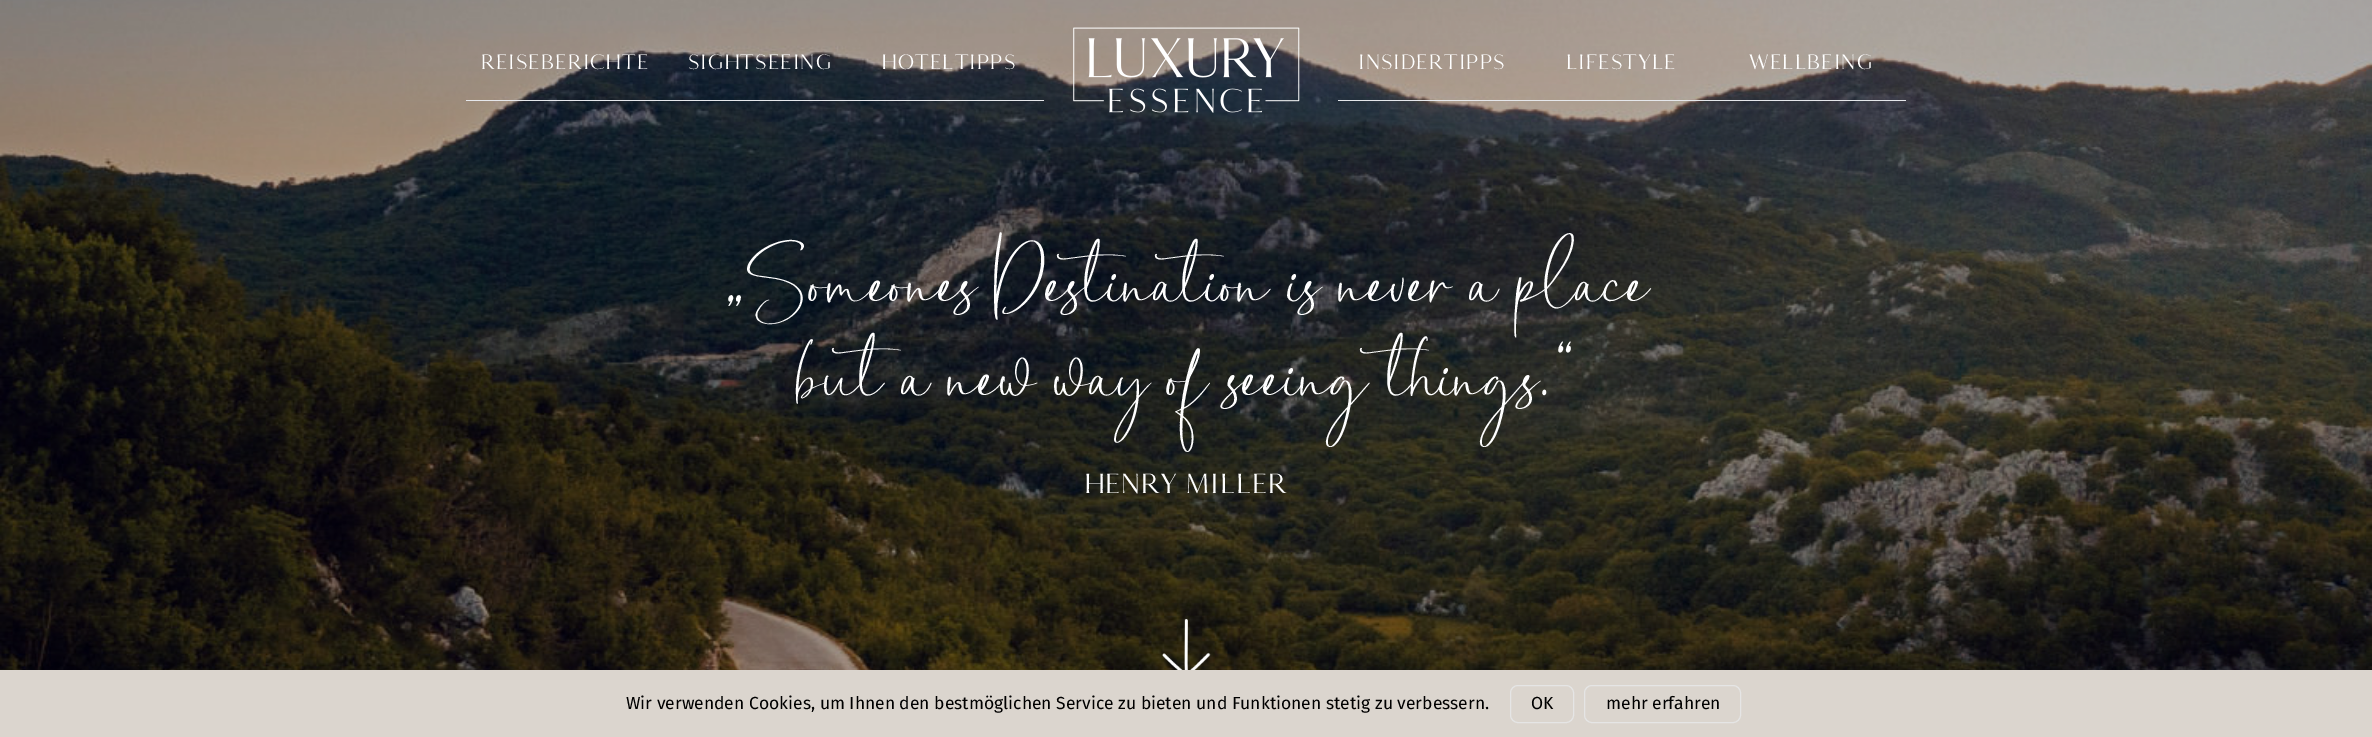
%!PS
<< /PageSize [2372 737] /PageUsesTransparency true >> setpagedevice
/mt/moveto load def
/st/stroke load def
/co { dup -16 bitshift 255 div exch dup -8 bitshift 255 and 255 div exch 255 and 255 div setrgbcolor } def
/fn { [ exch dup neg 0 0 3 -1 roll 0 0 ] selectfont } def
/tx { co fn moveto show } def
/bx { co rectfill } def
/al { dup .setfillconstantalpha .setstrokeconstantalpha } def
/rr { 5 dict begin { /r /h /w /y /x } { exch def } forall
  x r add y moveto x w add y 2 copy h add r arct x w add y h add x 1 index r arct
  x y h add x y r arct x y 2 copy exch w add exch r arct closepath end } def
/sh { 12 dict begin { /a /b /q /h /w /y /x } { exch def } forall gsave /was 0 def
  9 -2 -9 { dup b mul 4 div /e exch def 1 sub .425 mul 2.718 exch exp 1 add a .99 .min exch div /now exch def
    1 1 now sub 1 was sub div sub al /was now def
    w h .min e 2 mul add 0 gt { x e sub y e sub w e 2 mul add h e 2 mul add
      q e add b .6 mul add w h .min 2 div e add .min 0 .max rr fill } if } for grestore end } def
/im { 5 dict begin { /h /w /y /x /name } { exch def } forall
  gsave x y translate w h scale
  w h 8 [w 0 0 h 0 0] name (r) file false 3 colorimage grestore end } def
0 .pushpdf14devicefilter
0 737 translate 1 -1 scale
4 setmiterlimit
0 0 2372 737 16#FFFFFF bx
(media/2.raw) 0 0 2372 670 im
(media/1.raw) 1073 27 227 86 im
466 100 578 1 16#E5E7EB bx
1338 100 568 1 16#E5E7EB bx
(media/3.raw) 1162 619 49 51 im
16#000000 co
0 671 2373 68 0 2 .1 sh
0 670 2372 67 16#DBD5CE bx
16#E5E5E5 co
1510.5 685.5 63 37 7.5 rr st
1584.5 685.5 156 37 7.5 rr st
/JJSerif-Regular 22.5 fn
16#FFFFFF co
481 69 mt 1.1 0 (REISEBERICHTE) ashow
688 69 mt 1.1 0 (SIGHTSEEING) ashow
882 69 mt 1.1 0 (HOTELTIPPS) ashow
1358 69 mt 1.1 0 (INSIDERTIPPS) ashow
1566 69 mt 1.1 0 (LIFESTYLE) ashow
1749 69 mt 1.1 0 (WELLBEING) ashow
(„Someones Destination is never a place) 723 300 /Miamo-Regular 75 16#FFFFFF tx
(but a new way of seeing things.“) 795 394 /Miamo-Regular 75 16#FFFFFF tx
/JJSerif-Regular 30 fn
1085 493 mt .75 0 (HENRY MILLER) ashow
(Wir verwenden Cookies, um Ihnen den bestmöglichen Service zu bieten und Funktionen stetig zu verbessern.) 626 709 /FiraSans-Regular 17.5 16#000000 tx
(OK) 1531 709 /FiraSans-Regular 17.5 16#000000 tx
(mehr erfahren) 1606 709 /FiraSans-Regular 17.5 16#000000 tx
.poppdf14devicefilter showpage
